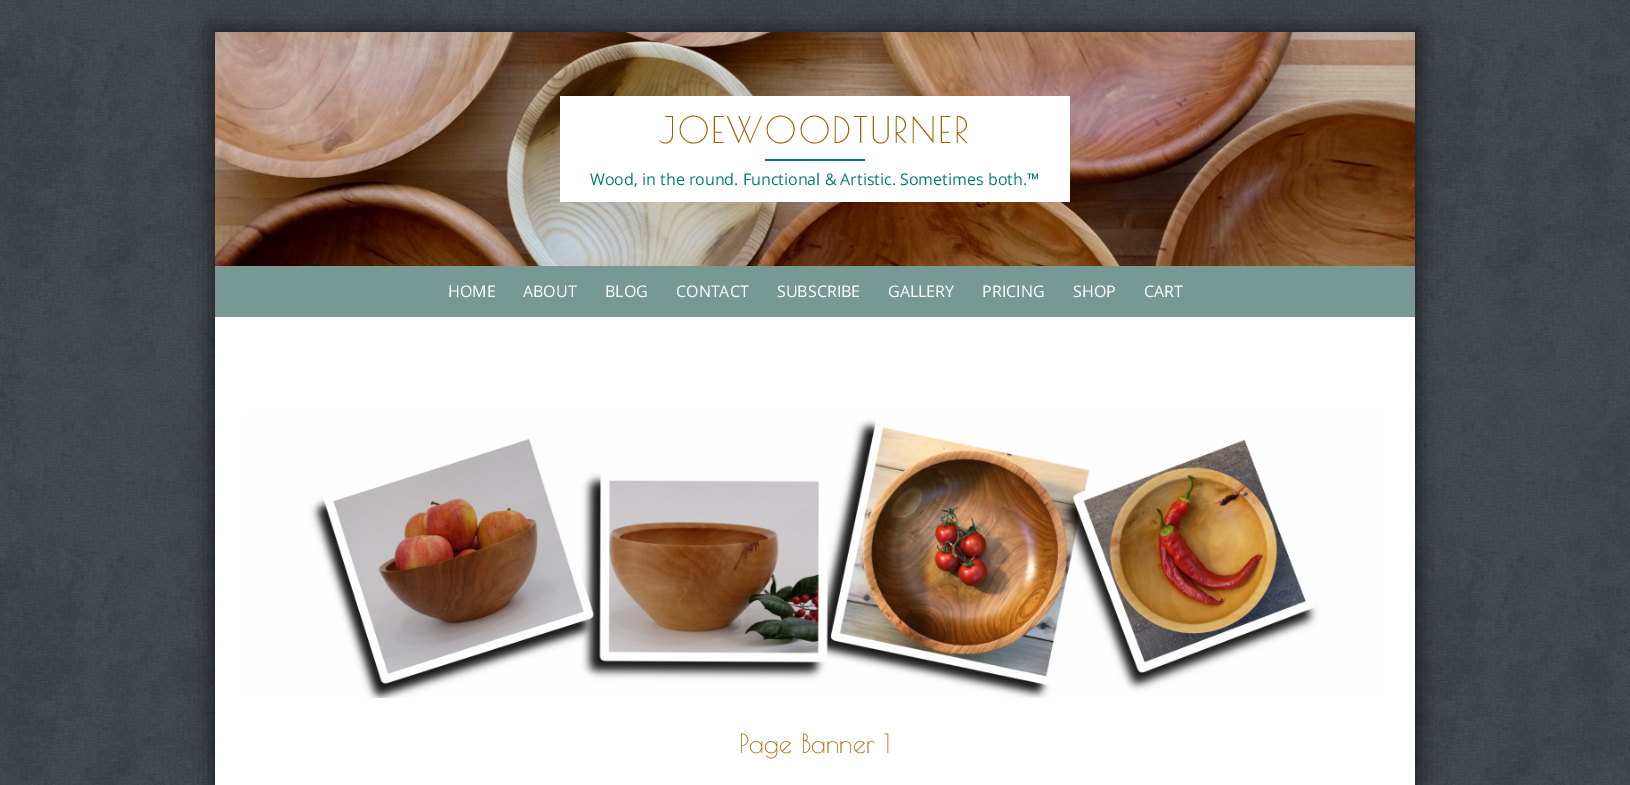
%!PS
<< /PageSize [1630 785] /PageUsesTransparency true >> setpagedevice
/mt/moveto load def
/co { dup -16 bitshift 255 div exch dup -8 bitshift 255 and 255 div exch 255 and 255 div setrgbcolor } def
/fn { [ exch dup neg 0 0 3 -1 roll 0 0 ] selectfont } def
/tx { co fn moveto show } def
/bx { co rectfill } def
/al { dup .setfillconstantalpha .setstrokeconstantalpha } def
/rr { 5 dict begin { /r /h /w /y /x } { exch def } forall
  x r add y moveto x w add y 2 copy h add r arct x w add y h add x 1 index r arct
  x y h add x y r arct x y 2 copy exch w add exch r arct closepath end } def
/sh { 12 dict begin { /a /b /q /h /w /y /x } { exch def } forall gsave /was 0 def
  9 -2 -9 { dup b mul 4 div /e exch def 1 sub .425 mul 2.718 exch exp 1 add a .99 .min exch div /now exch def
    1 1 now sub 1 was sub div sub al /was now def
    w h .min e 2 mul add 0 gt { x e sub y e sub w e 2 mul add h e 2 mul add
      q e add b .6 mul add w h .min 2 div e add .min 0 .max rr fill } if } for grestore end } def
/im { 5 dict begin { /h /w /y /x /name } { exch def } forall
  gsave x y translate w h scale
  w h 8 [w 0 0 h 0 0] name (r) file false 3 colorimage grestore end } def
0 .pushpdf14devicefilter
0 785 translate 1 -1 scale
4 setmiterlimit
0 0 1630 785 16#FFFFFF bx
(media/1.raw) 0 0 1630 785 im
16#000000 co
210 27 1210 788 0 10 .5 sh
(media/2.raw) 215 32 1200 234 im
560 96 510 106 16#FFFFFF bx
765 159 100 2 16#097C79 bx
215 266 1200 51 16#789993 bx
215 317 1200 468 16#FFFFFF bx
(media/3.raw) 245 413 1140 285 im
/PoiretOne-Regular 36 fn
16#A06000 co
659 143 mt 2 0 (JOEWOODTURNER) ashow
(Wood, in the round. Functional & Artistic. Sometimes both.™) 590 185 /OpenSans-Regular 16 16#097C79 tx
(HOME) 448 297 /OpenSans-Regular 16 16#FFFFFF tx
(ABOUT) 523 297 /OpenSans-Regular 16 16#FFFFFF tx
(BLOG) 605 297 /OpenSans-Regular 16 16#FFFFFF tx
(CONTACT) 676 297 /OpenSans-Regular 16 16#FFFFFF tx
(SUBSCRIBE) 777 297 /OpenSans-Regular 16 16#FFFFFF tx
(GALLERY) 888 297 /OpenSans-Regular 16 16#FFFFFF tx
(PRICING) 982 297 /OpenSans-Regular 16 16#FFFFFF tx
(SHOP) 1073 297 /OpenSans-Regular 16 16#FFFFFF tx
(CART) 1144 297 /OpenSans-Regular 16 16#FFFFFF tx
(Page Banner 1) 739 753 /PoiretOne-Regular 26 16#A86400 tx
.poppdf14devicefilter showpage
